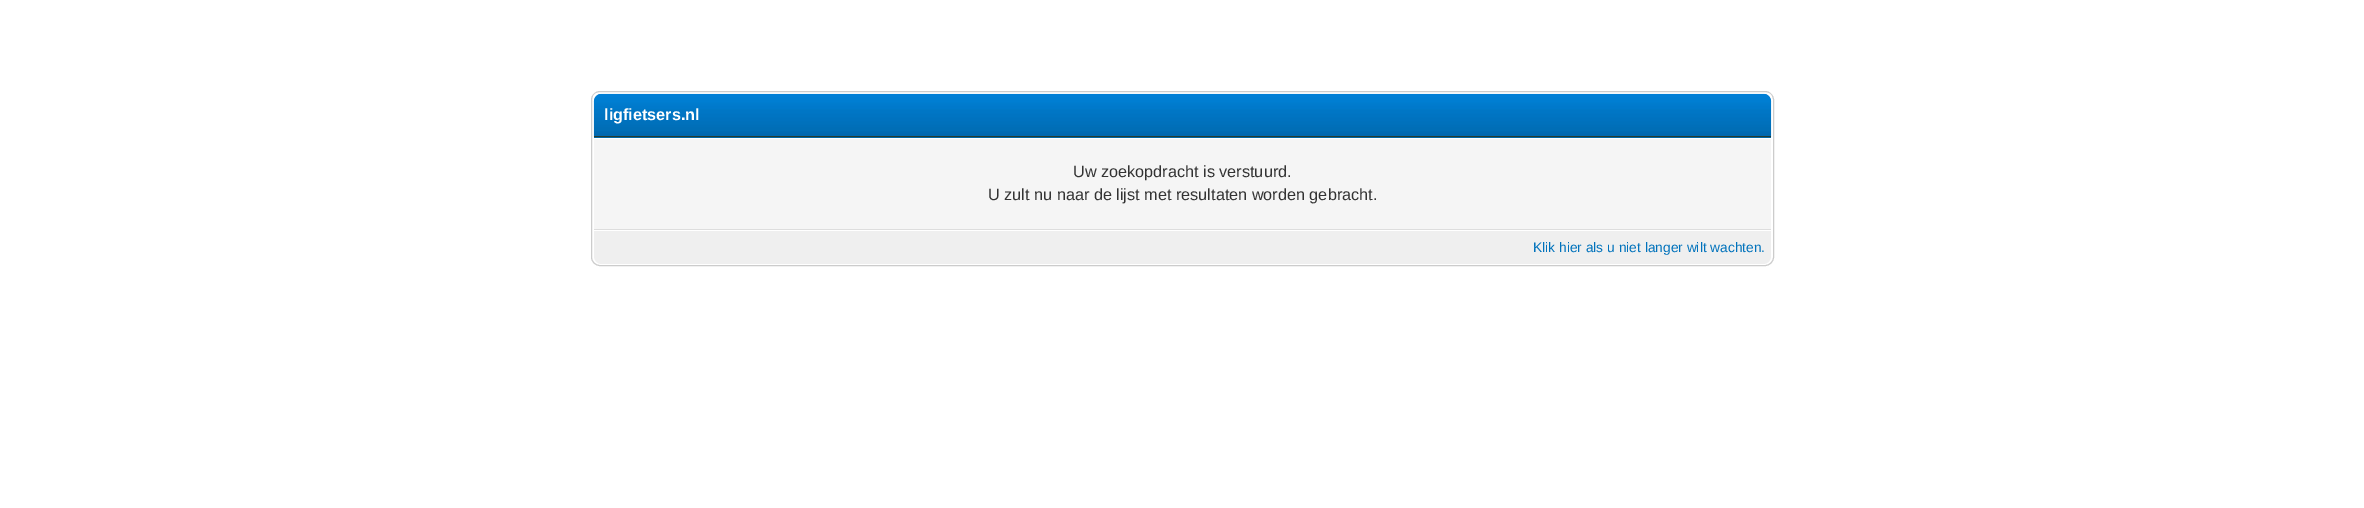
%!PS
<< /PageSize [2364 508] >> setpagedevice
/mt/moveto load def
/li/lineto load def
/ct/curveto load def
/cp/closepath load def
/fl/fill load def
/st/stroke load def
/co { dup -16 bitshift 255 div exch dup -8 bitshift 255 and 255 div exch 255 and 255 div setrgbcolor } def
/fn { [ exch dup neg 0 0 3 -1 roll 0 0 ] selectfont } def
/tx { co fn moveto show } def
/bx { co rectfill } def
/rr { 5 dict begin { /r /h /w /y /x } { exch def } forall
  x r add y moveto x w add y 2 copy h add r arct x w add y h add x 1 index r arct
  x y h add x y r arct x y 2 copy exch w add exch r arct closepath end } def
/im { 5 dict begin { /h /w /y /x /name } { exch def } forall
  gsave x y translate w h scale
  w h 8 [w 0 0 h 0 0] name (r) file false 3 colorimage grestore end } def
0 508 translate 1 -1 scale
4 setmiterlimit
0 0 2364 508 16#FFFFFF bx
16#CCCCCC co
591.5 91.5 1182 174 8.5 rr st
16#0066A2 co
602 94 mt 1763 94 li 1767.5 94 1771 97.5 1771 102 ct 1771 138 li 594 138 li 594 102 li 594 97.5 597.5 94 602 94 ct cp fl
(media/1.raw) 593 93 1179 44 im
594 136 1177 1 16#263C30 bx
594 139 1177 90 16#F5F5F5 bx
594 229 1177 1 16#DDDDDD bx
16#EFEFEF co
594 230 mt 1771 230 li 1771 256 li 1771 260.5 1767.5 264 1763 264 ct 602 264 li 597.5 264 594 260.5 594 256 ct cp fl
594 230 1177 1 16#FFFFFF bx
(ligfietsers.nl) 604 120 /LiberationSans-Bold 16.25 16#FFFFFF tx
(Uw zoekopdracht is verstuurd.) 1073 177 /LiberationSans-Regular 16.25 16#333333 tx
(U zult nu naar de lijst met resultaten worden gebracht.) 988 200 /LiberationSans-Regular 16.25 16#333333 tx
(Klik hier als u niet langer wilt wachten.) 1533 252 /LiberationSans-Regular 13.75 16#0072BC tx
showpage
